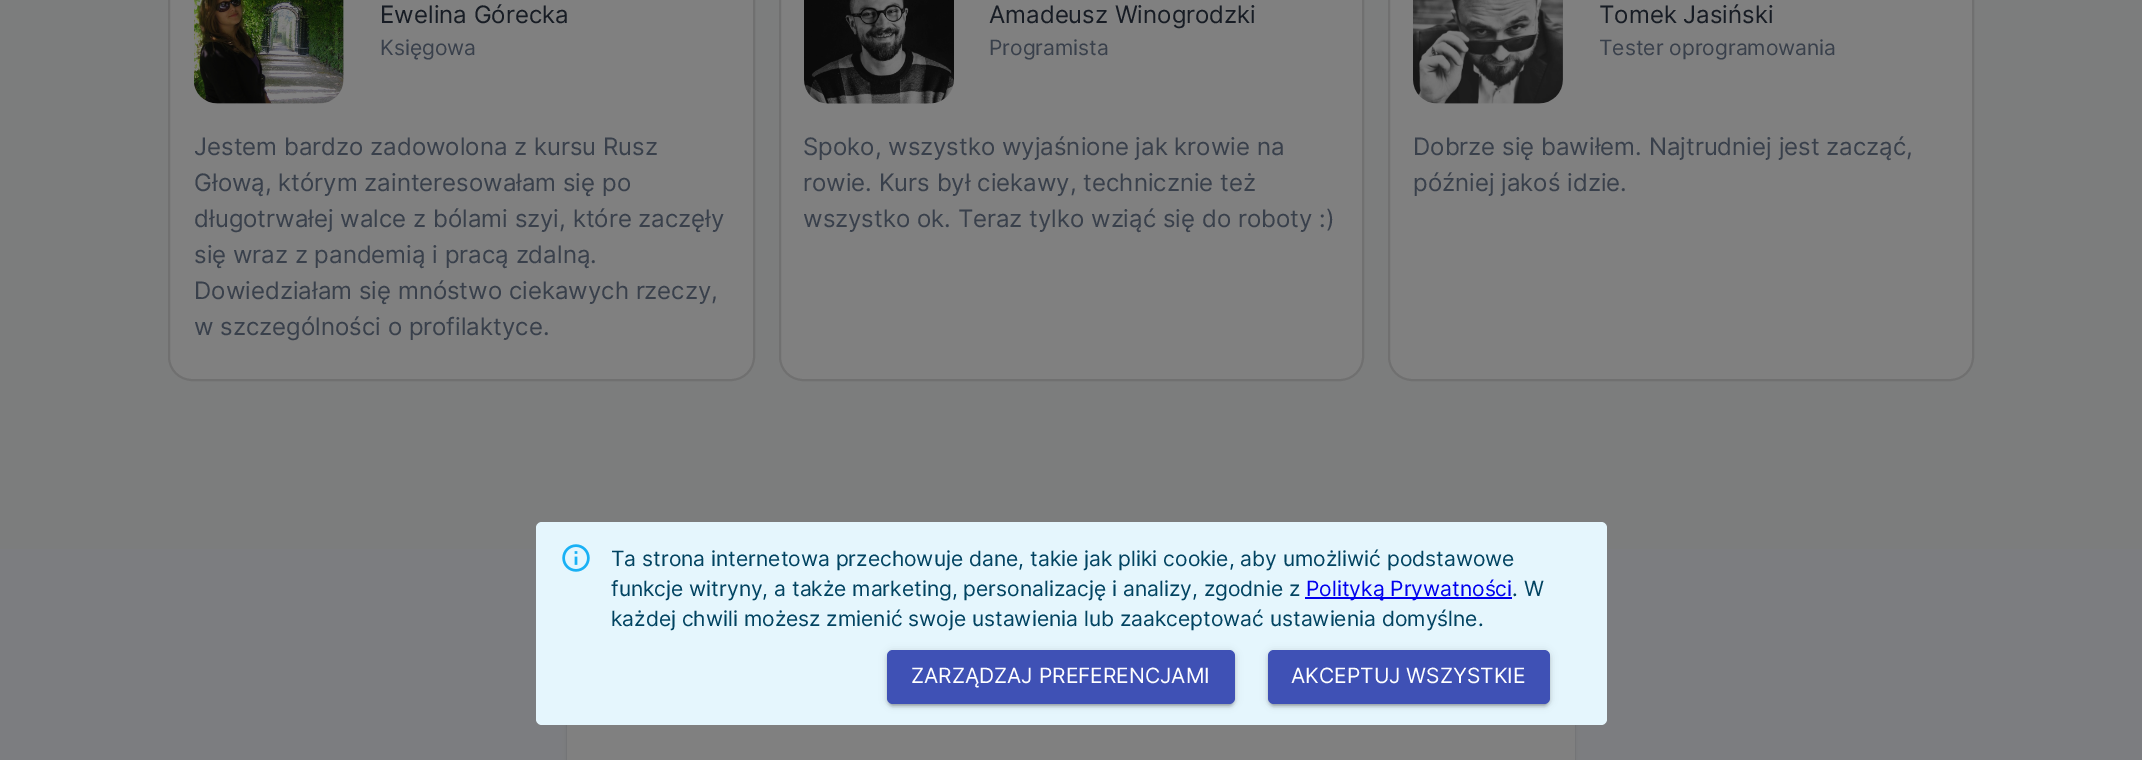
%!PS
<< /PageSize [2142 760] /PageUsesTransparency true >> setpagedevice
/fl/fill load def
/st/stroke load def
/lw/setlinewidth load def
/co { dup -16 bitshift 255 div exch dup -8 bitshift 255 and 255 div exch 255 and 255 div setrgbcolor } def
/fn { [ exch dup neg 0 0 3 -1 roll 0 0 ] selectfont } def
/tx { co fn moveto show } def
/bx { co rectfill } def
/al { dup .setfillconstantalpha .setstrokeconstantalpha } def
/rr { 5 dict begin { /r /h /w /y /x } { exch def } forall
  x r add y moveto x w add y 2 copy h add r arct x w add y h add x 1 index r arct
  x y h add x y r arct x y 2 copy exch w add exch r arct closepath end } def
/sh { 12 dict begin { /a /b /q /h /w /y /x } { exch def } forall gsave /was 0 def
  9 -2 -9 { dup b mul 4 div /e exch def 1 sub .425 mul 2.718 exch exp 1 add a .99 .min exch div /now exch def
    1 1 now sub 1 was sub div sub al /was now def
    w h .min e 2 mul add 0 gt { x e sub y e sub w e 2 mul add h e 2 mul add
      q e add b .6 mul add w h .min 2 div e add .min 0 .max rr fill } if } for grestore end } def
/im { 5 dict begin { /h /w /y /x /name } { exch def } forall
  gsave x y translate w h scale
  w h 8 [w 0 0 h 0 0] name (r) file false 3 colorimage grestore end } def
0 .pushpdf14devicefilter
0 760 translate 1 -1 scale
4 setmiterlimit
0 0 2142 760 16#7C7D7D bx
16#808080 co
168 -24 587 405 24 rr fl
0.12 al
16#000000 co
2 lw
169 -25 585 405 23 rr st
1 al
(media/1.raw) 194 0 150 104 im
16#808080 co
779 -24 585 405 24 rr fl
0.12 al
16#000000 co
780 -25 583 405 23 rr st
1 al
(media/2.raw) 804 0 150 104 im
16#808080 co
1388 -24 586 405 24 rr fl
0.12 al
16#000000 co
1389 -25 584 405 23 rr st
1 al
(media/3.raw) 1413 0 150 104 im
0 549 2142 211 16#7C7D80 bx
16#000000 co
567 647 1008 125 6 2 .12 sh
567 647 1008 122 6 1 .14 sh
567 725 1008 35 16#808080 bx
16#E5F6FD co
536 522 1071 203 6 rr fl
(media/4.raw) 562 544 28 28 im
1305 597 207 2 16#0000EE bx
16#000000 co
887 651 348 54 6 4 .12 sh
887 653 348 54 6 1.5 .14 sh
890 657 342 48 3 1 .2 sh
16#3F51B5 co
887 650 348 54 6 rr fl
16#000000 co
1268 651 282 54 6 4 .12 sh
1268 653 282 54 6 1.5 .14 sh
1271 657 276 48 3 1 .2 sh
16#3F51B5 co
1268 650 282 54 6 rr fl
(Ewelina Górecka) 380 23 /Inter-Regular 24 16#171C24 tx
(Księgowa) 380 55 /Inter-Regular 21 16#39404B tx
(Jestem bardzo zadowolona z kursu Rusz) 194 155 /Inter-Regular 24 16#39404B tx
(Głową, którym zainteresowałam się po) 194 191 /Inter-Regular 24 16#39404B tx
(długotrwałej walce z bólami szyi, które zaczęły) 194 227 /Inter-Regular 24 16#39404B tx
(się wraz z pandemią i pracą zdalną.) 194 263 /Inter-Regular 24 16#39404B tx
(Dowiedziałam się mnóstwo ciekawych rzeczy,) 194 299 /Inter-Regular 24 16#39404B tx
(w szczególności o profilaktyce.) 194 335 /Inter-Regular 24 16#39404B tx
(Amadeusz Winogrodzki) 989 23 /Inter-Regular 24 16#171C24 tx
(Programista) 989 55 /Inter-Regular 21 16#39404B tx
(Spoko, wszystko wyjaśnione jak krowie na) 803 155 /Inter-Regular 24 16#39404B tx
(rowie. Kurs był ciekawy, technicznie też) 803 191 /Inter-Regular 24 16#39404B tx
(wszystko ok. Teraz tylko wziąć się do roboty :\)) 803 227 /Inter-Regular 24 16#39404B tx
(Tomek Jasiński) 1599 23 /Inter-Regular 24 16#171C24 tx
(Tester oprogramowania) 1599 55 /Inter-Regular 21 16#39404B tx
(Dobrze się bawiłem. Najtrudniej jest zacząć,) 1413 155 /Inter-Regular 24 16#39404B tx
(później jakoś idzie.) 1413 191 /Inter-Regular 24 16#39404B tx
(Ta strona internetowa przechowuje dane, takie jak pliki cookie, aby umożliwić podstawowe) 611 566 /Inter-Regular 21 16#014361 tx
(funkcje witryny, a także marketing, personalizację i analizy, zgodnie z) 611 596 /Inter-Regular 21 16#014361 tx
(Polityką Prywatności) 1306 596 /Inter-Regular 21 16#0000EE tx
(. W) 1512 596 /Inter-Regular 21 16#014361 tx
(każdej chwili możesz zmienić swoje ustawienia lub zaakceptować ustawienia domyślne.) 611 626 /Inter-Regular 21 16#014361 tx
(ZARZĄDZAJ PREFERENCJAMI) 911 683 /Inter-Regular 21 16#FFFFFF tx
(AKCEPTUJ WSZYSTKIE) 1291 683 /Inter-Regular 21 16#FFFFFF tx
.poppdf14devicefilter showpage
